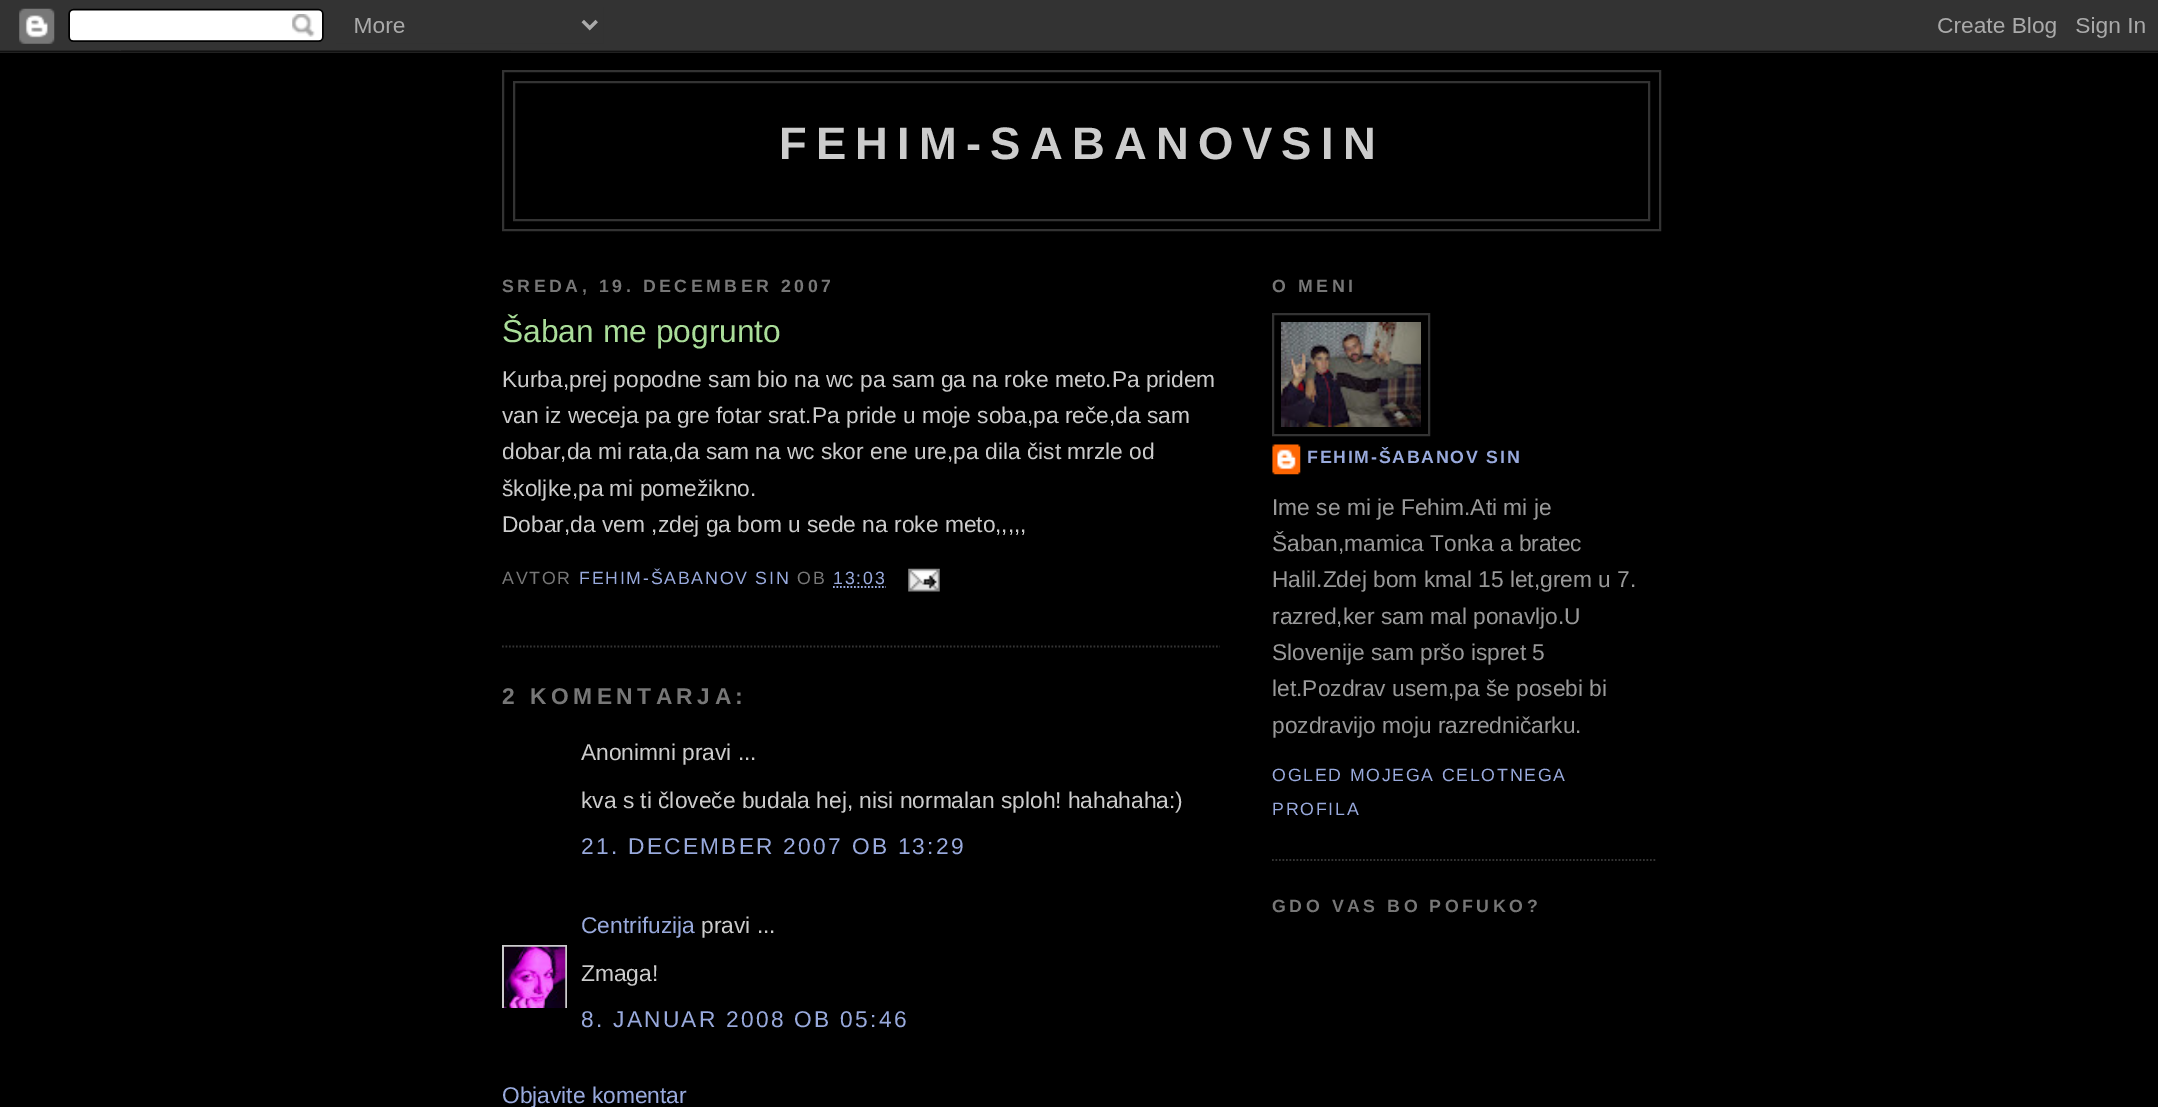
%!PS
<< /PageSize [2158 1107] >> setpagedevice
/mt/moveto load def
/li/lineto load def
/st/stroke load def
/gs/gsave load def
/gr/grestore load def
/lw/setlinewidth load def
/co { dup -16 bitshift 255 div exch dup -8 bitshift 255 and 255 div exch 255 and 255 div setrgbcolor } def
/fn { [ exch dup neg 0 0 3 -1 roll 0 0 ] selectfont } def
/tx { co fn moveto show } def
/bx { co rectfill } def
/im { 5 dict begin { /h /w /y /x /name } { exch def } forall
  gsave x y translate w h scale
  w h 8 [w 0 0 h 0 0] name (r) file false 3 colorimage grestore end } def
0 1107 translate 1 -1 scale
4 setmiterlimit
0 0 2158 1107 16#000000 bx
(media/1.raw) 0 0 2158 53 im
16#333333 co
2 lw
503 71 1157 159 rectstroke
514 82 1135 138 rectstroke
1.8 lw
[1.75 1.75] 0 setdash
502 646.5 mt 1220 646.5 li st
16#99AADD co
833 587 mt 886 587 li st
(media/2.raw) 908 568 32 24 im
gs
502 945 65 63 rectclip
16#CCCCCC co
2 lw
[] 0 setdash
503 946 63 63 rectstroke
gr
(media/3.raw) 504 946 62 62 im
16#333333 co
1272 860 mt 1657 860 li st
2 lw
[] 0 setdash
1273 314 156 121 rectstroke
(media/4.raw) 1281 322 140 105 im
(media/5.raw) 1272 444 29 31 im
/LiberationSans-Bold 45.5 fn
16#CCCCCC co
779 159 mt 9.1 0 (FEHIM-SABANOVSIN) ashow
/LiberationSans-Bold 17.75 fn
16#777777 co
502 292 mt 3.55 0 (SREDA, 19. DECEMBER 2007) ashow
(Šaban me pogrunto) 502 342 /LiberationSans-Regular 31.75 16#AADD99 tx
(Kurba,prej popodne sam bio na wc pa sam ga na roke meto.Pa pridem) 502 387 /LiberationSans-Regular 22.75 16#CCCCCC tx
(van iz weceja pa gre fotar srat.Pa pride u moje soba,pa reče,da sam) 502 423 /LiberationSans-Regular 22.75 16#CCCCCC tx
(dobar,da mi rata,da sam na wc skor ene ure,pa dila čist mrzle od) 502 459 /LiberationSans-Regular 22.75 16#CCCCCC tx
(školjke,pa mi pomežikno.) 502 496 /LiberationSans-Regular 22.75 16#CCCCCC tx
(Dobar,da vem ,zdej ga bom u sede na roke meto,,,,,) 502 532 /LiberationSans-Regular 22.75 16#CCCCCC tx
/LiberationSans-Regular 17.75 fn
16#777777 co
502 584 mt 1.75 0 (AVTOR) ashow
16#99AADD co
579 584 mt 1.75 0 (FEHIM-ŠABANOV SIN) ashow
16#777777 co
797 584 mt 1.75 0 (OB) ashow
16#99AADD co
833 584 mt 1.75 0 (13:03) ashow
/LiberationSans-Bold 22.75 fn
16#777777 co
502 704 mt 4.5 0 (2 KOMENTARJA:) ashow
(Anonimni pravi ...) 581 760 /LiberationSans-Regular 22.75 16#CCCCCC tx
(kva s ti človeče budala hej, nisi normalan sploh! hahahaha:\)) 581 808 /LiberationSans-Regular 22.75 16#CCCCCC tx
16#99AADD co
581 854 mt 2.25 0 (21. DECEMBER 2007 OB 13:29) ashow
(Centrifuzija) 581 933 /LiberationSans-Regular 22.75 16#99AADD tx
(pravi ...) 701 933 /LiberationSans-Regular 22.75 16#CCCCCC tx
(Zmaga!) 581 981 /LiberationSans-Regular 22.75 16#CCCCCC tx
16#99AADD co
581 1027 mt 2.25 0 (8. JANUAR 2008 OB 05:46) ashow
(Objavite komentar) 502 1103 /LiberationSans-Regular 22.75 16#99AADD tx
/LiberationSans-Bold 17.75 fn
16#777777 co
1272 292 mt 3.55 0 (O MENI) ashow
16#99AADD co
1307 463 mt 1.75 0 (FEHIM-ŠABANOV SIN) ashow
(Ime se mi je Fehim.Ati mi je) 1272 515 /LiberationSans-Regular 22.75 16#999999 tx
(Šaban,mamica Tonka a bratec) 1272 551 /LiberationSans-Regular 22.75 16#999999 tx
(Halil.Zdej bom kmal 15 let,grem u 7.) 1272 587 /LiberationSans-Regular 22.75 16#999999 tx
(razred,ker sam mal ponavljo.U) 1272 624 /LiberationSans-Regular 22.75 16#999999 tx
(Slovenije sam pršo ispret 5) 1272 660 /LiberationSans-Regular 22.75 16#999999 tx
(let.Pozdrav usem,pa še posebi bi) 1272 696 /LiberationSans-Regular 22.75 16#999999 tx
(pozdravijo moju razredničarku.) 1272 733 /LiberationSans-Regular 22.75 16#999999 tx
/LiberationSans-Regular 17.75 fn
16#99AADD co
1272 781 mt 1.75 0 (OGLED MOJEGA CELOTNEGA) ashow
1272 815 mt 1.75 0 (PROFILA) ashow
/LiberationSans-Bold 17.75 fn
16#777777 co
1272 912 mt 3.55 0 (GDO VAS BO POFUKO?) ashow
showpage
